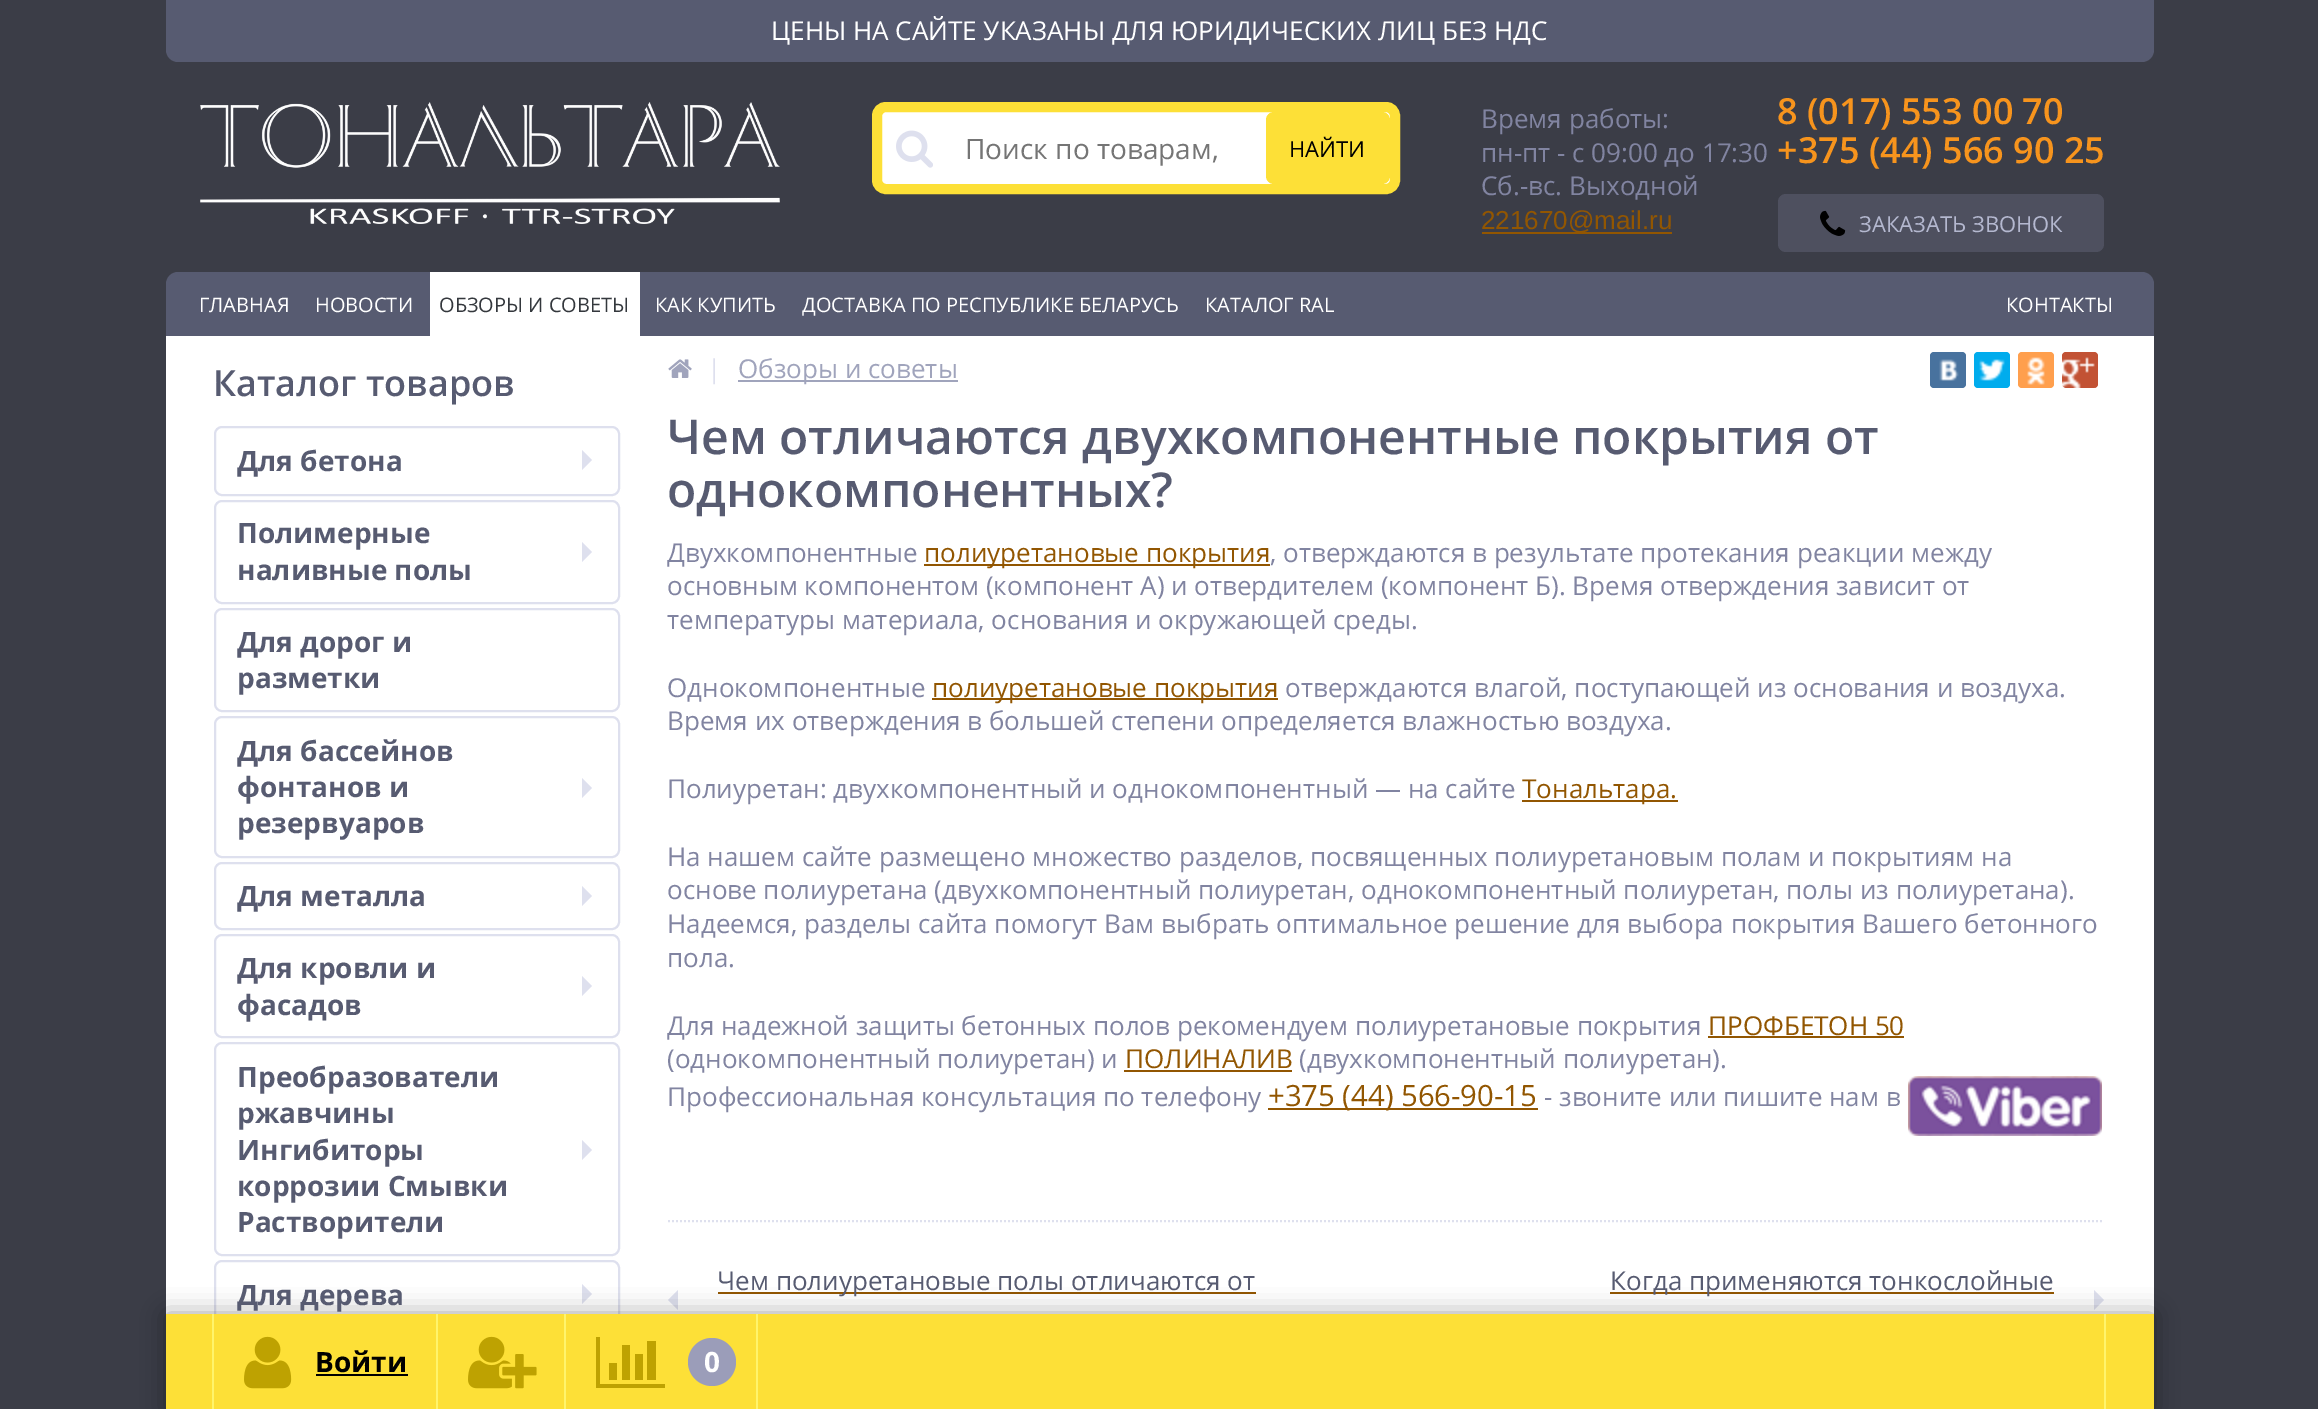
%!PS
<< /PageSize [2318 1409] /PageUsesTransparency true >> setpagedevice
/mt/moveto load def
/li/lineto load def
/ct/curveto load def
/cp/closepath load def
/fl/fill load def
/st/stroke load def
/gs/gsave load def
/gr/grestore load def
/lw/setlinewidth load def
/co { dup -16 bitshift 255 div exch dup -8 bitshift 255 and 255 div exch 255 and 255 div setrgbcolor } def
/fn { [ exch dup neg 0 0 3 -1 roll 0 0 ] selectfont } def
/tx { co fn moveto show } def
/bx { co rectfill } def
/al { dup .setfillconstantalpha .setstrokeconstantalpha } def
/ci { newpath 0 360 arc closepath } def
/rr { 5 dict begin { /r /h /w /y /x } { exch def } forall
  x r add y moveto x w add y 2 copy h add r arct x w add y h add x 1 index r arct
  x y h add x y r arct x y 2 copy exch w add exch r arct closepath end } def
/sh { 12 dict begin { /a /b /q /h /w /y /x } { exch def } forall gsave /was 0 def
  9 -2 -9 { dup b mul 4 div /e exch def 1 sub .425 mul 2.718 exch exp 1 add a .99 .min exch div /now exch def
    1 1 now sub 1 was sub div sub al /was now def
    w h .min e 2 mul add 0 gt { x e sub y e sub w e 2 mul add h e 2 mul add
      q e add b .6 mul add w h .min 2 div e add .min 0 .max rr fill } if } for grestore end } def
/im { 5 dict begin { /h /w /y /x /name } { exch def } forall
  gsave x y translate w h scale
  w h 8 [w 0 0 h 0 0] name (r) file false 3 colorimage grestore end } def
0 .pushpdf14devicefilter
0 1409 translate 1 -1 scale
4 setmiterlimit
0 0 2318 1409 16#3B3D47 bx
16#575B71 co
166 0 mt 2154 0 li 2154 50 li 2154 56.5 2148.5 62 2142 62 ct 178 62 li 171.5 62 166 56.5 166 50 ct cp fl
(media/1.raw) 200 102 580 122 im
16#FFFFFF co
877 107 518 82 9 rr gs fl gr
16#FDE037 co
10 lw
st
(media/2.raw) 896 130 37 38 im
1266 112 124 72 8 rr fl
1482 232 190 2 16#925601 bx
16#4E505F co
1778 194 326 58 8 rr fl
(media/3.raw) 1820 210 26 26 im
16#575B71 co
178 272 mt 2142 272 li 2148.5 272 2154 277.5 2154 284 ct 2154 336 li 166 336 li 166 284 li 166 277.5 171.5 272 178 272 ct cp fl
430 272 210 64 16#FFFFFF bx
166 336 1988 978 16#FFFFFF bx
16#DEE0EE co
2 lw
215 427 404 68 7 rr st
582 470 mt 582 450 li 592 460 li cp fl
215 501 404 102 7 rr st
582 562 mt 582 542 li 592 552 li cp fl
215 609 404 102 7 rr st
215 717 404 140 7 rr st
582 798 mt 582 778 li 592 788 li cp fl
215 863 404 66 7 rr st
582 906 mt 582 886 li 592 896 li cp fl
215 935 404 102 7 rr st
582 996 mt 582 976 li 592 986 li cp fl
215 1043 404 212 7 rr st
582 1160 mt 582 1140 li 592 1150 li cp fl
215 1261 404 68 7 rr st
582 1304 mt 582 1284 li 592 1294 li cp fl
(media/4.raw) 668 359 24 19 im
738 380 220 2 16#A0A4BC bx
16#48729E co
1930 352 36 36 4 rr fl
(media/5.raw) 1939 359 20 22 im
16#00ACED co
1974 352 36 36 4 rr fl
(media/6.raw) 1979 359 26 22 im
16#FF9F4D co
2018 352 36 36 4 rr fl
(media/7.raw) 2027 357 18 28 im
16#C25234 co
2062 352 36 36 4 rr fl
(media/8.raw) 2062 357 33 31 im
924 564 346 2 16#925601 bx
932 698 346 2 16#925601 bx
1522 800 156 2 16#925601 bx
1708 1036 196 2 16#925601 bx
1124 1070 168 2 16#925601 bx
1268 1108 270 2 16#925601 bx
(media/9.raw) 1908 1076 194 60 im
16#DEE0EE co
[2 2] 0 setdash
668 1221 mt 2104 1221 li st
718 1292 538 2 16#925601 bx
16#DEE0EE co
678 1290 mt 678 1310 li 668 1300 li cp fl
1610 1292 444 2 16#925601 bx
16#DEE0EE co
2094 1310 mt 2094 1290 li 2104 1300 li cp fl
16#000000 co
166 1314 1988 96 0 12 .36 sh
166 1314 1988 95 16#FDE037 bx
2104 1314 2 95 16#FFF46B bx
212 1314 2 95 16#FFF46B bx
436 1314 2 95 16#FFF46B bx
(media/10.raw) 244 1336 48 53 im
316 1374 92 2 16#000000 bx
564 1314 2 95 16#FFF46B bx
(media/11.raw) 468 1336 69 53 im
756 1314 2 95 16#FFF46B bx
16#BEA201 co
617 1363 mt 617 1380 li 609 1380 li 609 1363 li cp 630 1345 mt 630 1380 li 622 1380 li 622 1345 li cp 665 1384 mt 665 1388 li 596 1388 li 596 1337 li 600 1337 li 600 1384 li cp 643 1354 mt 643 1380 li 635 1380 li 635 1354 li cp 656 1341 mt 656 1380 li 647 1380 li 647 1341 li cp fl
16#9B9DB9 co
712 1362 24 ci fl
(ЦЕНЫ НА САЙТЕ УКАЗАНЫ ДЛЯ ЮРИДИЧЕСКИХ ЛИЦ БЕЗ НДС) 771 40 /OpenSans-Regular 26 16#FFFFFF tx
(Поиск по товарам,) 965 159 /OpenSans-Regular 28 16#757575 tx
(НАЙТИ) 1289 157 /OpenSans-Regular 22 16#000000 tx
(Время работы:) 1481 128 /OpenSans-Regular 26 16#8184A1 tx
(пн-пт - с 09:00 до 17:30) 1481 162 /OpenSans-Regular 26 16#8184A1 tx
(Сб.-вс. Выходной) 1481 195 /OpenSans-Regular 26 16#8184A1 tx
(221670@mail.ru) 1481 229 /LiberationSans-Regular 26 16#925601 tx
(8 \(017\) 553 00 70) 1777 124 /OpenSans-SemiBold 36 16#F7941D tx
(+375 \(44\) 566 90 25) 1777 163 /OpenSans-SemiBold 36 16#F7941D tx
(ЗАКАЗАТЬ ЗВОНОК) 1859 232 /OpenSans-Regular 22 16#B4B8CF tx
(ГЛАВНАЯ) 199 312 /OpenSans-Regular 20 16#FFFFFF tx
(НОВОСТИ) 315 312 /OpenSans-Regular 20 16#FFFFFF tx
(ОБЗОРЫ И СОВЕТЫ) 439 312 /OpenSans-Regular 20 16#34383D tx
(КАК КУПИТЬ) 655 312 /OpenSans-Regular 20 16#FFFFFF tx
(ДОСТАВКА ПО РЕСПУБЛИКЕ БЕЛАРУСЬ) 802 312 /OpenSans-Regular 20 16#FFFFFF tx
(КАТАЛОГ RAL) 1205 312 /OpenSans-Regular 20 16#FFFFFF tx
(КОНТАКТЫ) 2006 312 /OpenSans-Regular 20 16#FFFFFF tx
(Каталог товаров) 213 396 /OpenSans-SemiBold 36 16#575B71 tx
(Для бетона) 237 471 /OpenSans-Bold 28 16#575B71 tx
(Полимерные) 237 543 /OpenSans-Bold 28 16#575B71 tx
(наливные полы) 237 580 /OpenSans-Bold 28 16#575B71 tx
(Для дорог и) 237 652 /OpenSans-Bold 28 16#575B71 tx
(разметки) 237 688 /OpenSans-Bold 28 16#575B71 tx
(Для бассейнов) 237 761 /OpenSans-Bold 28 16#575B71 tx
(фонтанов и) 237 797 /OpenSans-Bold 28 16#575B71 tx
(резервуаров) 237 833 /OpenSans-Bold 28 16#575B71 tx
(Для металла) 237 906 /OpenSans-Bold 28 16#575B71 tx
(Для кровли и) 237 978 /OpenSans-Bold 28 16#575B71 tx
(фасадов) 237 1015 /OpenSans-Bold 28 16#575B71 tx
(Преобразователи) 237 1087 /OpenSans-Bold 28 16#575B71 tx
(ржавчины) 237 1123 /OpenSans-Bold 28 16#575B71 tx
(Ингибиторы) 237 1160 /OpenSans-Bold 28 16#575B71 tx
(коррозии Смывки) 237 1196 /OpenSans-Bold 28 16#575B71 tx
(Растворители) 237 1232 /OpenSans-Bold 28 16#575B71 tx
(Для дерева) 237 1305 /OpenSans-Bold 28 16#575B71 tx
(|) 707 378 /OpenSans-Regular 26 16#DEE0EE tx
(Обзоры и советы) 738 378 /OpenSans-Regular 26 16#A0A4BC tx
(Чем отличаются двухкомпонентные покрытия от) 667 454 /OpenSans-SemiBold 48 16#575B71 tx
(однокомпонентных?) 667 507 /OpenSans-SemiBold 48 16#575B71 tx
(Двухкомпонентные) 667 562 /OpenSans-Regular 26 16#8184A1 tx
(полиуретановые покрытия) 924 562 /OpenSans-Regular 26 16#925601 tx
(, отверждаются в результате протекания реакции между) 1270 562 /OpenSans-Regular 26 16#8184A1 tx
(основным компонентом \(компонент А\) и отвердителем \(компонент Б\). Время отверждения зависит от) 667 595 /OpenSans-Regular 26 16#8184A1 tx
(температуры материала, основания и окружающей среды.) 667 629 /OpenSans-Regular 26 16#8184A1 tx
(Однокомпонентные) 667 697 /OpenSans-Regular 26 16#8184A1 tx
(полиуретановые покрытия) 932 697 /OpenSans-Regular 26 16#925601 tx
(отверждаются влагой, поступающей из основания и воздуха.) 1285 697 /OpenSans-Regular 26 16#8184A1 tx
(Время их отверждения в большей степени определяется влажностью воздуха.) 667 730 /OpenSans-Regular 26 16#8184A1 tx
(Полиуретан: двухкомпонентный и однокомпонентный — на сайте) 667 798 /OpenSans-Regular 26 16#8184A1 tx
(Тональтара.) 1522 798 /OpenSans-Regular 26 16#925601 tx
(На нашем сайте размещено множество разделов, посвященных полиуретановым полам и покрытиям на) 667 866 /OpenSans-Regular 26 16#8184A1 tx
(основе полиуретана \(двухкомпонентный полиуретан, однокомпонентный полиуретан, полы из полиуретана\).) 667 899 /OpenSans-Regular 26 16#8184A1 tx
(Надеемся, разделы сайта помогут Вам выбрать оптимальное решение для выбора покрытия Вашего бетонного) 667 933 /OpenSans-Regular 26 16#8184A1 tx
(пола.) 667 967 /OpenSans-Regular 26 16#8184A1 tx
(Для надежной защиты бетонных полов рекомендуем полиуретановые покрытия) 667 1035 /OpenSans-Regular 26 16#8184A1 tx
(ПРОФБЕТОН 50) 1708 1035 /OpenSans-Regular 26 16#925601 tx
(\(однокомпонентный полиуретан\) и) 667 1068 /OpenSans-Regular 26 16#8184A1 tx
(ПОЛИНАЛИВ) 1125 1068 /OpenSans-Regular 26 16#925601 tx
(\(двухкомпонентный полиуретан\).) 1299 1068 /OpenSans-Regular 26 16#8184A1 tx
(Профессиональная консультация по телефону) 667 1106 /OpenSans-Regular 26 16#8184A1 tx
(+375 \(44\) 566-90-15) 1268 1106 /OpenSans-Regular 29.25 16#925601 tx
(- звоните или пишите нам в) 1544 1106 /OpenSans-Regular 26 16#8184A1 tx
(Чем полиуретановые полы отличаются от) 717 1290 /OpenSans-Regular 26 16#575B71 tx
(Когда применяются тонкослойные) 1610 1290 /OpenSans-Regular 26 16#575B71 tx
(Войти) 315 1372 /OpenSans-Bold 28 16#000000 tx
(0) 704 1372 /OpenSans-Bold 28 16#FFFFFF tx
.poppdf14devicefilter showpage
